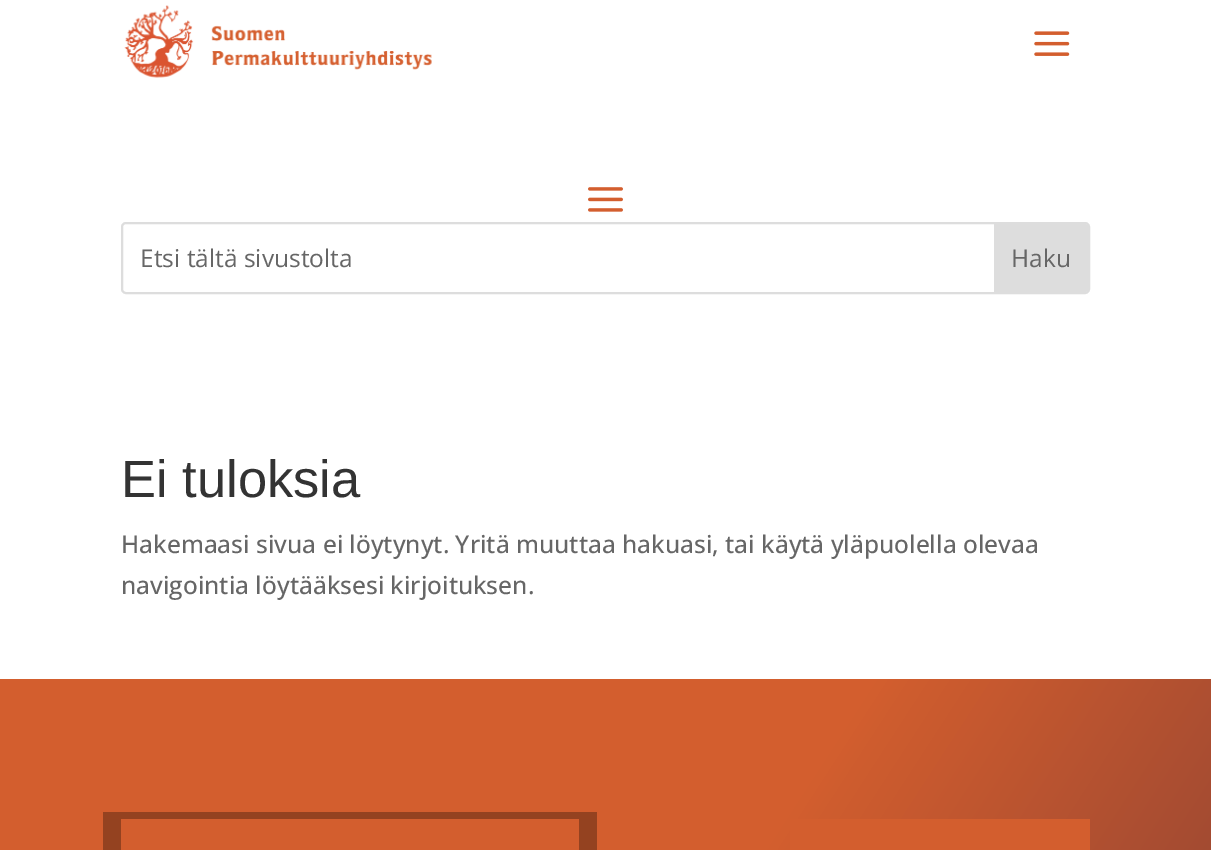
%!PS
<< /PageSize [1211 850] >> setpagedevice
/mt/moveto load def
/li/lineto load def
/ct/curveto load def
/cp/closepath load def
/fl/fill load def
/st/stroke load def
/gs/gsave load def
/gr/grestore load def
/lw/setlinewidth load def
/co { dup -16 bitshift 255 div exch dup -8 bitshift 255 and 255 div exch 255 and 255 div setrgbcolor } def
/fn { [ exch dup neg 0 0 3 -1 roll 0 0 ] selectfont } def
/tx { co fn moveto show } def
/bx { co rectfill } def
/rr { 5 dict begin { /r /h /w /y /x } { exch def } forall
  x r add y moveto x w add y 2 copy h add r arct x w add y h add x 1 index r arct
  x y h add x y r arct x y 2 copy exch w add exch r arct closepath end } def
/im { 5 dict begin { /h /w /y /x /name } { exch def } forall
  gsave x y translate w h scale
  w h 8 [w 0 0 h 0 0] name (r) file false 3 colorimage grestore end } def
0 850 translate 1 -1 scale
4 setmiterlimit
0 0 1211 850 16#FFFFFF bx
(media/1.raw) 124 5 308 73 im
(media/2.raw) 1034 31 36 25 im
(media/3.raw) 588 187 35 25 im
16#DDDDDD co
2 lw
122 223 967 70 4 rr st
994 224 mt 1085 224 li 1087 224 1089 226 1089 228 ct 1089 288 li 1089 290 1087 292 1085 292 ct 994 292 li cp fl
gs 0 679 mt 1211 679 li 1211 850 li 0 850 li cp clip newpath
<< /ShadingType 2 /ColorSpace /DeviceRGB /Coords [64 580 1147 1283] /Extend [true true] /Function << /FunctionType 3 /Domain [0 1] /Functions [<< /FunctionType 2 /Domain [0 1] /C0 [.827 .369 .18] /C1 [.827 .369 .18] /N 1 >> << /FunctionType 2 /Domain [0 1] /C0 [.827 .369 .18] /C1 [.549 .255 .204] /N 1 >>] /Bounds [.57] /Encode [0 1 0 1] >> >> shfill gr
16#944220 co
103 812 mt 103 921 li 597 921 li 597 812 li cp 121 819 mt 121 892 li 579 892 li 579 819 li cp eofill
790 819 300 31 16#D35E2E bx
(Etsi tältä sivustolta) 140 267 /OpenSans-Regular 24.5 16#666666 tx
(Haku) 1011 267 /OpenSans-Regular 24.5 16#666666 tx
(Ei tuloksia) 121 497 /LiberationSans-Regular 52.5 16#333333 tx
(Hakemaasi sivua ei löytynyt. Yritä muuttaa hakuasi, tai käytä yläpuolella olevaa) 121 553 /OpenSans-Medium 24.5 16#666666 tx
(navigointia löytääksesi kirjoituksen.) 121 594 /OpenSans-Medium 24.5 16#666666 tx
showpage
